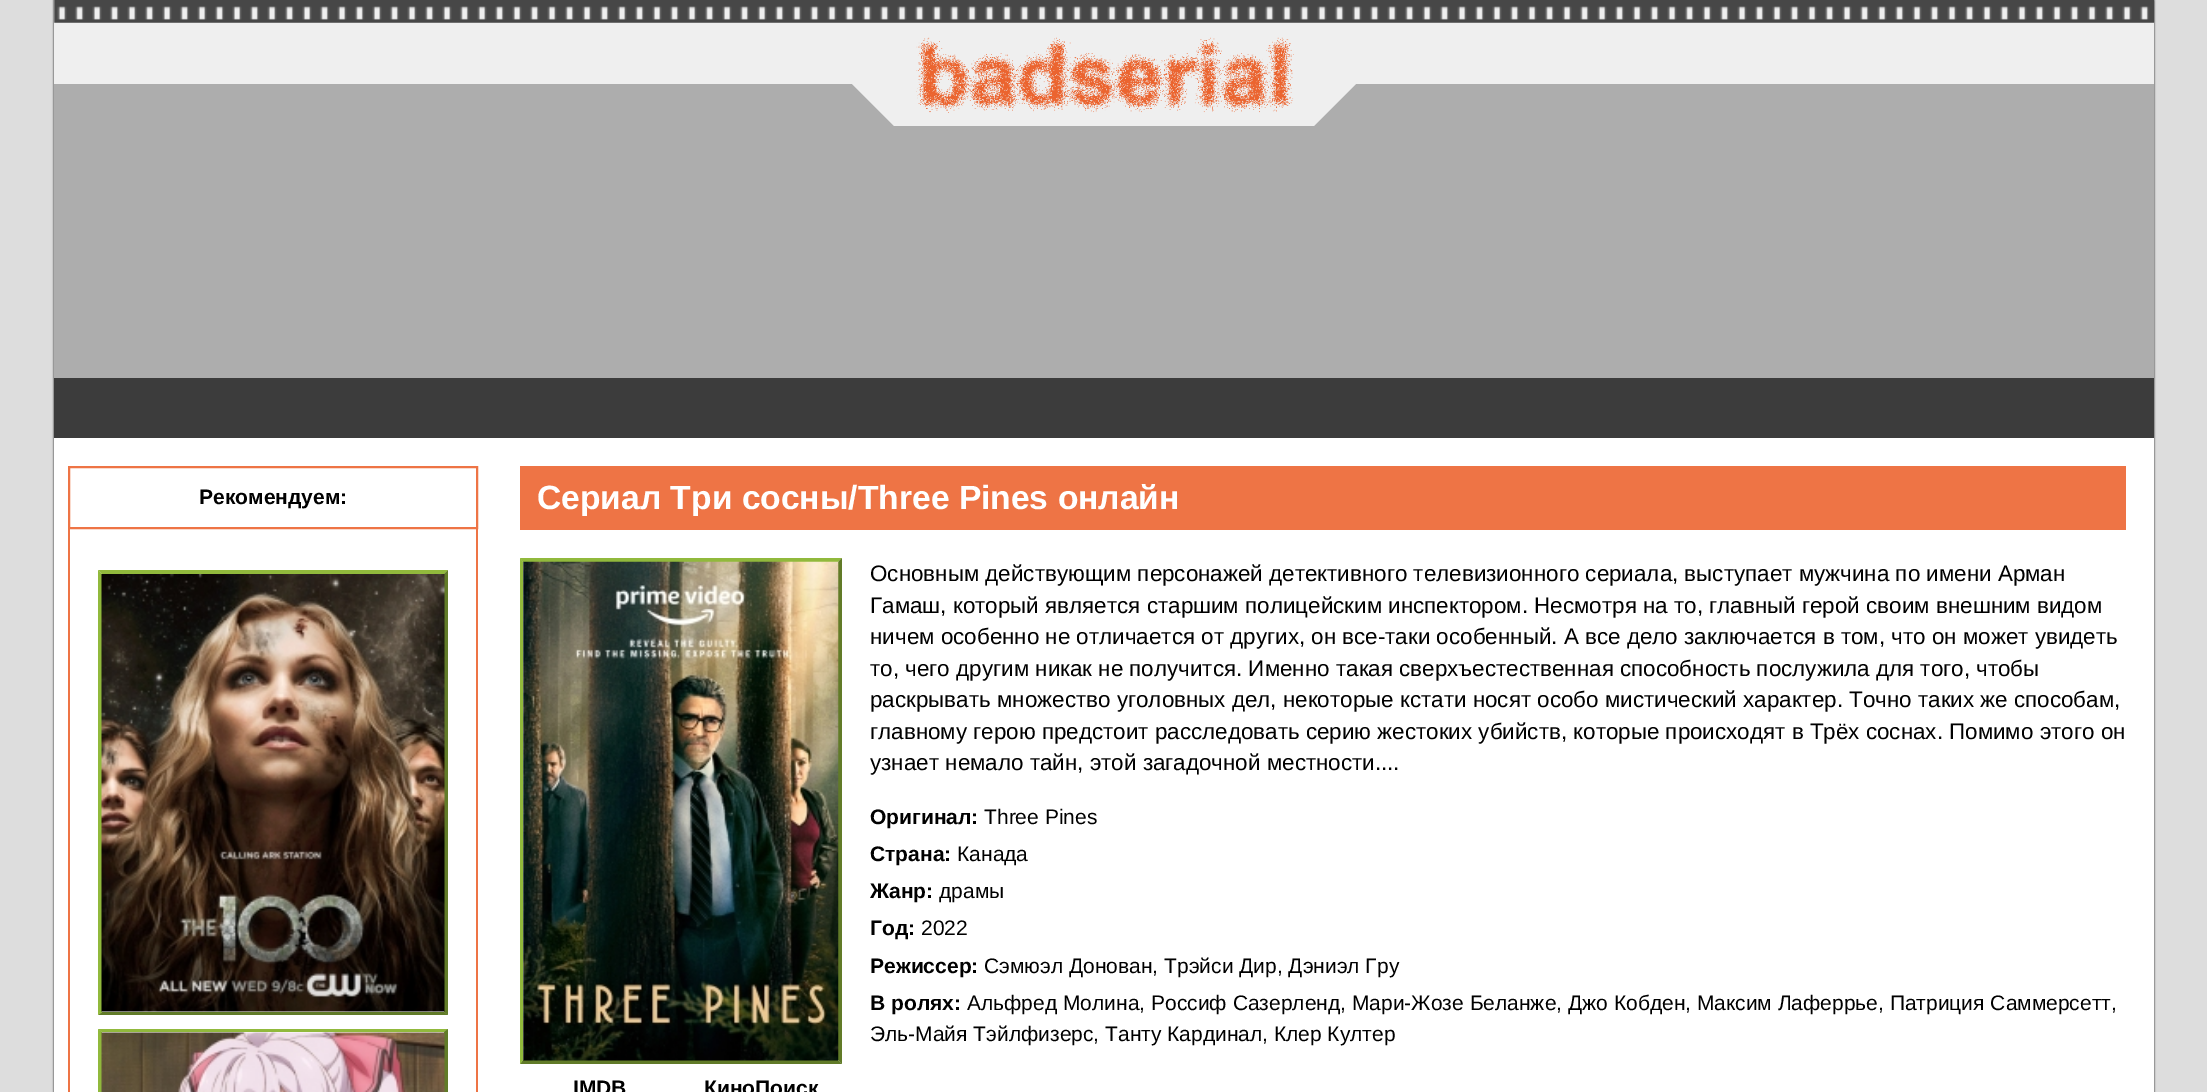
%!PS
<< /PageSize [2207 1092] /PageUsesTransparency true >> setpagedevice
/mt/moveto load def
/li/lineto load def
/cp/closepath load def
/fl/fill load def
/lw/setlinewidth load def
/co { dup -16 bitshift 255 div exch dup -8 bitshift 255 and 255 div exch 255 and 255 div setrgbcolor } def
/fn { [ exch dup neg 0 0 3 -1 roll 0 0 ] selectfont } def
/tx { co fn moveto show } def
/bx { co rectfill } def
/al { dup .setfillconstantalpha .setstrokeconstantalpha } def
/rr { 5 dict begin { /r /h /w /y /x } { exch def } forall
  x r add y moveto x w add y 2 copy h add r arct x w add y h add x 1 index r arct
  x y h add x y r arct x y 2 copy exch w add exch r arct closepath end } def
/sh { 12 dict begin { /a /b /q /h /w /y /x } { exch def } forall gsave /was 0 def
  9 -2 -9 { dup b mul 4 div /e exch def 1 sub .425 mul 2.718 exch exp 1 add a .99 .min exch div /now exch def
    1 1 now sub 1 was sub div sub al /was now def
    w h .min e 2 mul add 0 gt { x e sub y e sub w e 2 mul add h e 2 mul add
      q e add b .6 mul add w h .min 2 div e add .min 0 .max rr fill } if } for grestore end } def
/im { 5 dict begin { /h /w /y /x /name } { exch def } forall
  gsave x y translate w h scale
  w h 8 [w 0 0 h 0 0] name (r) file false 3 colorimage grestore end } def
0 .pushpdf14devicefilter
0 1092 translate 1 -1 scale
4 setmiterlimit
0 0 2207 1092 16#DDDDDD bx
16#000000 co
54 0 2100 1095 0 1 1 sh
54 438 2100 654 16#FFFFFF bx
54 0 2100 84 16#EFEFEF bx
(media/1.raw) 54 0 2101 23 im
54 84 2100 294 16#ADADAD bx
894 84 420 42 16#EFEFEF bx
(media/2.raw) 916 37 378 76 im
852 84 mt 894 84 li 894 126 li cp fl
1314 84 mt 1356 84 li 1314 126 li cp fl
54 378 2100 60 16#3C3C3C bx
16#EE7445 co
2 lw
69 467 408 61 rectstroke
476 529 2 563 16#EE7445 bx
68 529 2 563 16#EE7445 bx
16#91B93C co
98 570 mt 448 570 li 444 574 li 102 574 li cp fl
16#617B28 co
448 570 mt 448 1015 li 444 1012 li 444 574 li cp fl
448 1015 mt 98 1015 li 102 1012 li 444 1012 li cp fl
16#91B93C co
98 1015 mt 98 570 li 102 574 li 102 1012 li cp fl
(media/3.raw) 101 574 344 438 im
98 1029 mt 448 1029 li 444 1032 li 102 1032 li cp fl
16#617B28 co
448 1029 mt 448 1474 li 444 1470 li 444 1032 li cp fl
16#91B93C co
98 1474 mt 98 1029 li 102 1032 li 102 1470 li cp fl
(media/4.raw) 101 1032 344 60 im
520 466 1606 64 16#EE7445 bx
16#91B93C co
520 558 mt 842 558 li 838 562 li 523 562 li cp fl
16#617B28 co
842 558 mt 842 1064 li 838 1060 li 838 562 li cp fl
842 1064 mt 520 1064 li 523 1060 li 838 1060 li cp fl
16#91B93C co
520 1064 mt 520 558 li 523 562 li 523 1060 li cp fl
(media/5.raw) 523 561 316 500 im
(Рекомендуем:) 199 504 /LiberationSans-Bold 21 16#000000 tx
(Сериал Три сосны/Three Pines онлайн) 537 509 /LiberationSans-Bold 33.6 16#FFFFFF tx
(Основным действующим персонажей детективного телевизионного сериала, выступает мужчина по имени Арман) 870 581 /LiberationSans-Regular 22.4 16#000000 tx
(Гамаш, который является старшим полицейским инспектором. Несмотря на то, главный герой своим внешним видом) 870 613 /LiberationSans-Regular 22.4 16#000000 tx
(ничем особенно не отличается от других, он все-таки особенный. А все дело заключается в том, что он может увидеть) 870 644 /LiberationSans-Regular 22.4 16#000000 tx
(то, чего другим никак не получится. Именно такая сверхъестественная способность послужила для того, чтобы) 870 676 /LiberationSans-Regular 22.4 16#000000 tx
(раскрывать множество уголовных дел, некоторые кстати носят особо мистический характер. Точно таких же способам,) 870 707 /LiberationSans-Regular 22.4 16#000000 tx
(главному герою предстоит расследовать серию жестоких убийств, которые происходят в Трёх соснах. Помимо этого он) 870 739 /LiberationSans-Regular 22.4 16#000000 tx
(узнает немало тайн, этой загадочной местности....) 870 770 /LiberationSans-Regular 22.4 16#000000 tx
(Оригинал:) 870 824 /LiberationSans-Bold 21 16#000000 tx
(Three Pines) 984 824 /LiberationSans-Regular 21 16#000000 tx
(Страна:) 870 861 /LiberationSans-Bold 21 16#000000 tx
(Канада) 957 861 /LiberationSans-Regular 21 16#000000 tx
(Жанр:) 870 898 /LiberationSans-Bold 21 16#000000 tx
(драмы) 939 898 /LiberationSans-Regular 21 16#000000 tx
(Год:) 870 935 /LiberationSans-Bold 21 16#000000 tx
(2022) 921 935 /LiberationSans-Regular 21 16#000000 tx
(Режиссер:) 870 973 /LiberationSans-Bold 21 16#000000 tx
(Сэмюэл Донован, Трэйси Дир, Дэниэл Гру) 984 973 /LiberationSans-Regular 21 16#000000 tx
(В ролях:) 870 1010 /LiberationSans-Bold 21 16#000000 tx
(Альфред Молина, Россиф Сазерленд, Мари-Жозе Беланже, Джо Кобден, Максим Лаферрье, Патриция Саммерсетт,) 967 1010 /LiberationSans-Regular 21 16#000000 tx
(Эль-Майя Тэйлфизерс, Танту Кардинал, Клер Култер) 870 1041 /LiberationSans-Regular 21 16#000000 tx
(IMDB) 573 1095 /LiberationSans-Bold 21 16#000000 tx
(КиноПоиск) 704 1095 /LiberationSans-Bold 21 16#000000 tx
.poppdf14devicefilter showpage
